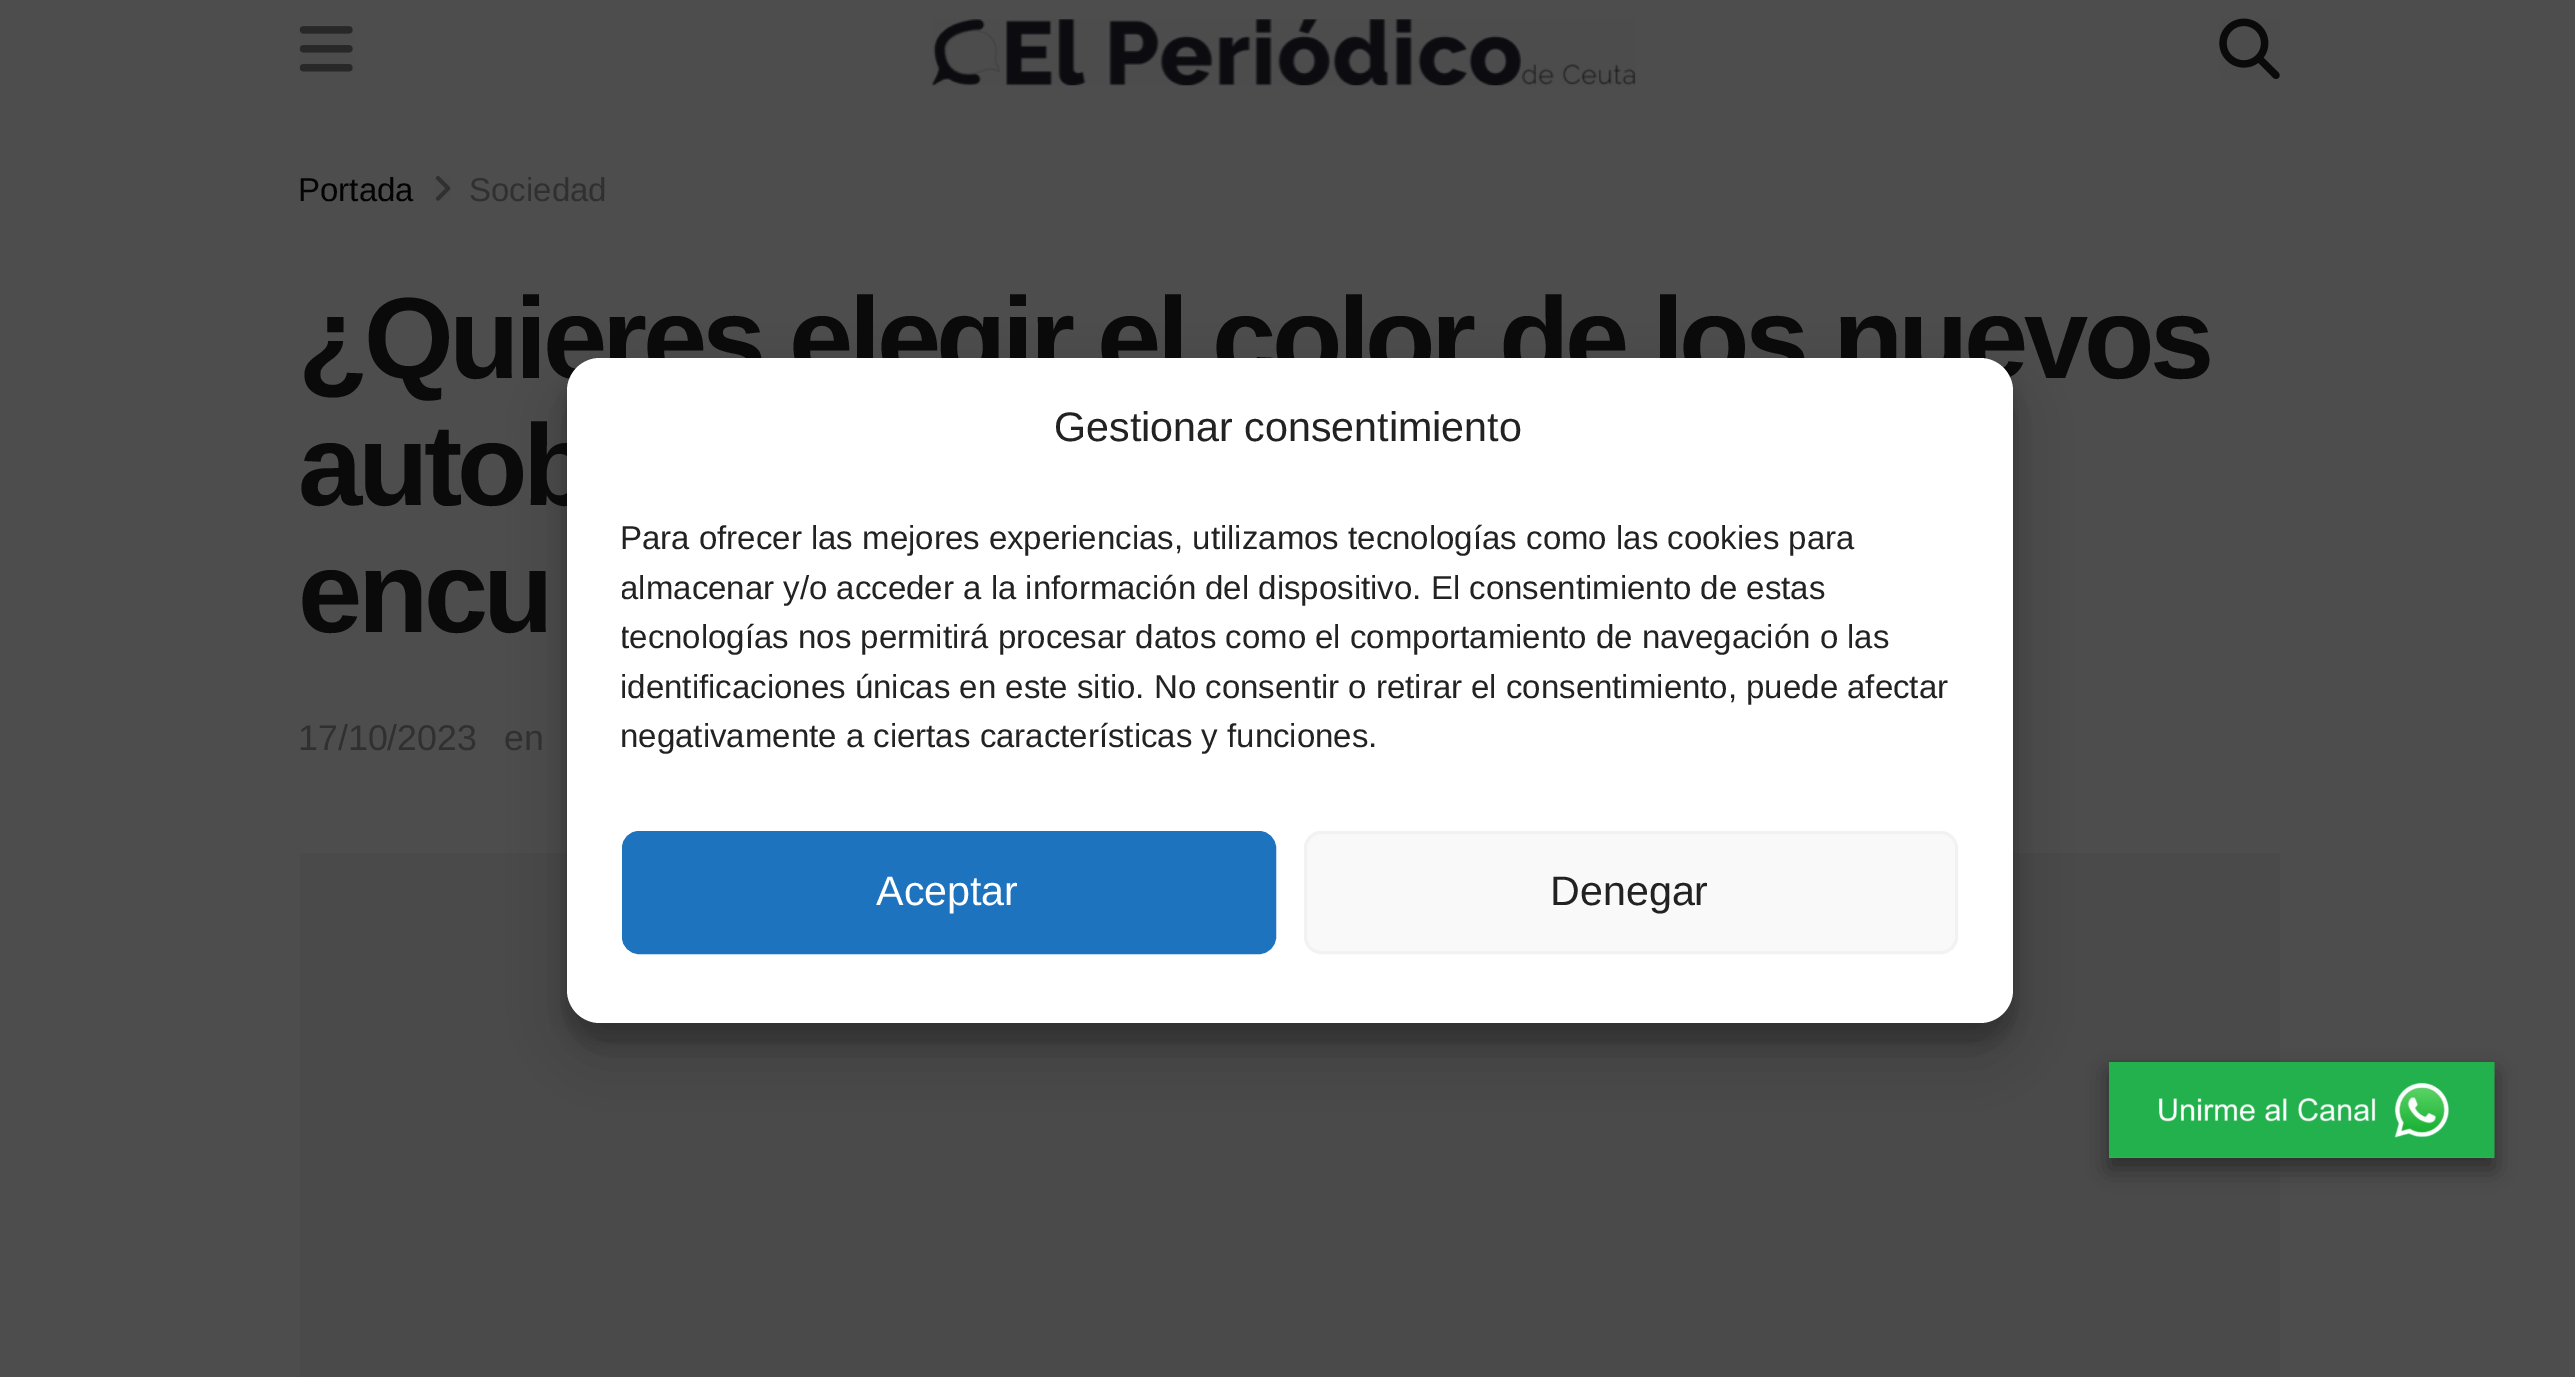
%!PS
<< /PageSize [2575 1377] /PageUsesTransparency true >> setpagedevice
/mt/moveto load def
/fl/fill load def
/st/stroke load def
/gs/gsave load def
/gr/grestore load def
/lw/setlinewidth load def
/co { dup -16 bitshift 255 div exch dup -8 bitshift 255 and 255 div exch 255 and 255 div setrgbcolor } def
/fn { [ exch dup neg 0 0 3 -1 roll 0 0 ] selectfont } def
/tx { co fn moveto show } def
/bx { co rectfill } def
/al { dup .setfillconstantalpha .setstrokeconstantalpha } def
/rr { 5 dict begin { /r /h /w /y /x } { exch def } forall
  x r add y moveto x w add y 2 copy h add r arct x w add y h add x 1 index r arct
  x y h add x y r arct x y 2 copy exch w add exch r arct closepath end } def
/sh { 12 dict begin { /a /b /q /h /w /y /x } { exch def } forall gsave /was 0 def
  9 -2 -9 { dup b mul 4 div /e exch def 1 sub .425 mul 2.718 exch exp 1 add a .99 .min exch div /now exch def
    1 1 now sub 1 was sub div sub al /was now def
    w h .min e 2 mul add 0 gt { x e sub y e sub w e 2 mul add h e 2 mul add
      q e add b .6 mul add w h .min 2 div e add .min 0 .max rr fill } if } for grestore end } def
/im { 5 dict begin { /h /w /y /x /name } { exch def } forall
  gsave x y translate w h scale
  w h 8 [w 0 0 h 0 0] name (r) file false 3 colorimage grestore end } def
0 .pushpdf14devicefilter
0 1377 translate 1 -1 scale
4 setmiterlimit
0 0 2575 1377 16#4D4D4D bx
(media/1.raw) 299 26 54 46 im
(media/2.raw) 932 19 704 67 im
(media/3.raw) 2219 18 61 61 im
(media/4.raw) 435 176 16 25 im
300 853 1980 524 16#4A4A4A bx
16#000000 co
2109 1073 385 96 0 11 .4 sh
2109 1082 385 76 16#25D366 bx
(media/5.raw) 2109 1062 386 96 im
16#000000 co
567 374 1446 666 33 8 .23 sh
567 385 1446 666 33 27.5 .19 sh
(Portada) 298 201 /LiberationSans-Regular 33 16#040303 tx
(Sociedad) 469 201 /LiberationSans-Regular 33 16#303030 tx
/LiberationSans-Bold 115.5 fn
16#0A0A0A co
298 378 mt -4.6 0 (¿Quieres elegir el color de los nuevos) ashow
298 505 mt -4.6 0 (autob) ashow
298 632 mt -4.6 0 (encu) ashow
(17/10/2023) 298 750 /LiberationSans-Regular 35.75 16#303030 tx
(en) 504 750 /LiberationSans-Regular 35.75 16#303030 tx
16#FFFFFF co
567 358 1446 665 33 rr fl
(Gestionar consentimiento) 1054 441 /LiberationSans-Regular 41.25 16#222222 tx
(Para ofrecer las mejores experiencias, utilizamos tecnologías como las cookies para) 620 549 /LiberationSans-Regular 33 16#222222 tx
gs
622 514 1336 262 rectclip
(almacenar y/o acceder a la información del dispositivo. El consentimiento de estas) 620 599 /LiberationSans-Regular 33 16#222222 tx
(tecnologías nos permitirá procesar datos como el comportamiento de navegación o las) 620 648 /LiberationSans-Regular 33 16#222222 tx
gr
(identificaciones únicas en este sitio. No consentir o retirar el consentimiento, puede afectar) 620 698 /LiberationSans-Regular 33 16#222222 tx
(negativamente a ciertas características y funciones.) 620 747 /LiberationSans-Regular 33 16#222222 tx
16#1E73BE co
623.5 832.5 651 120 15.5 rr gs fl gr
3 lw
st
(Aceptar) 876 905 /LiberationSans-Regular 41.25 16#FFFFFF tx
16#F9F9F9 co
1305.5 832.5 651 120 15.5 rr gs fl gr
16#F2F2F2 co
st
(Denegar) 1550 905 /LiberationSans-Regular 41.25 16#222222 tx
.poppdf14devicefilter showpage
